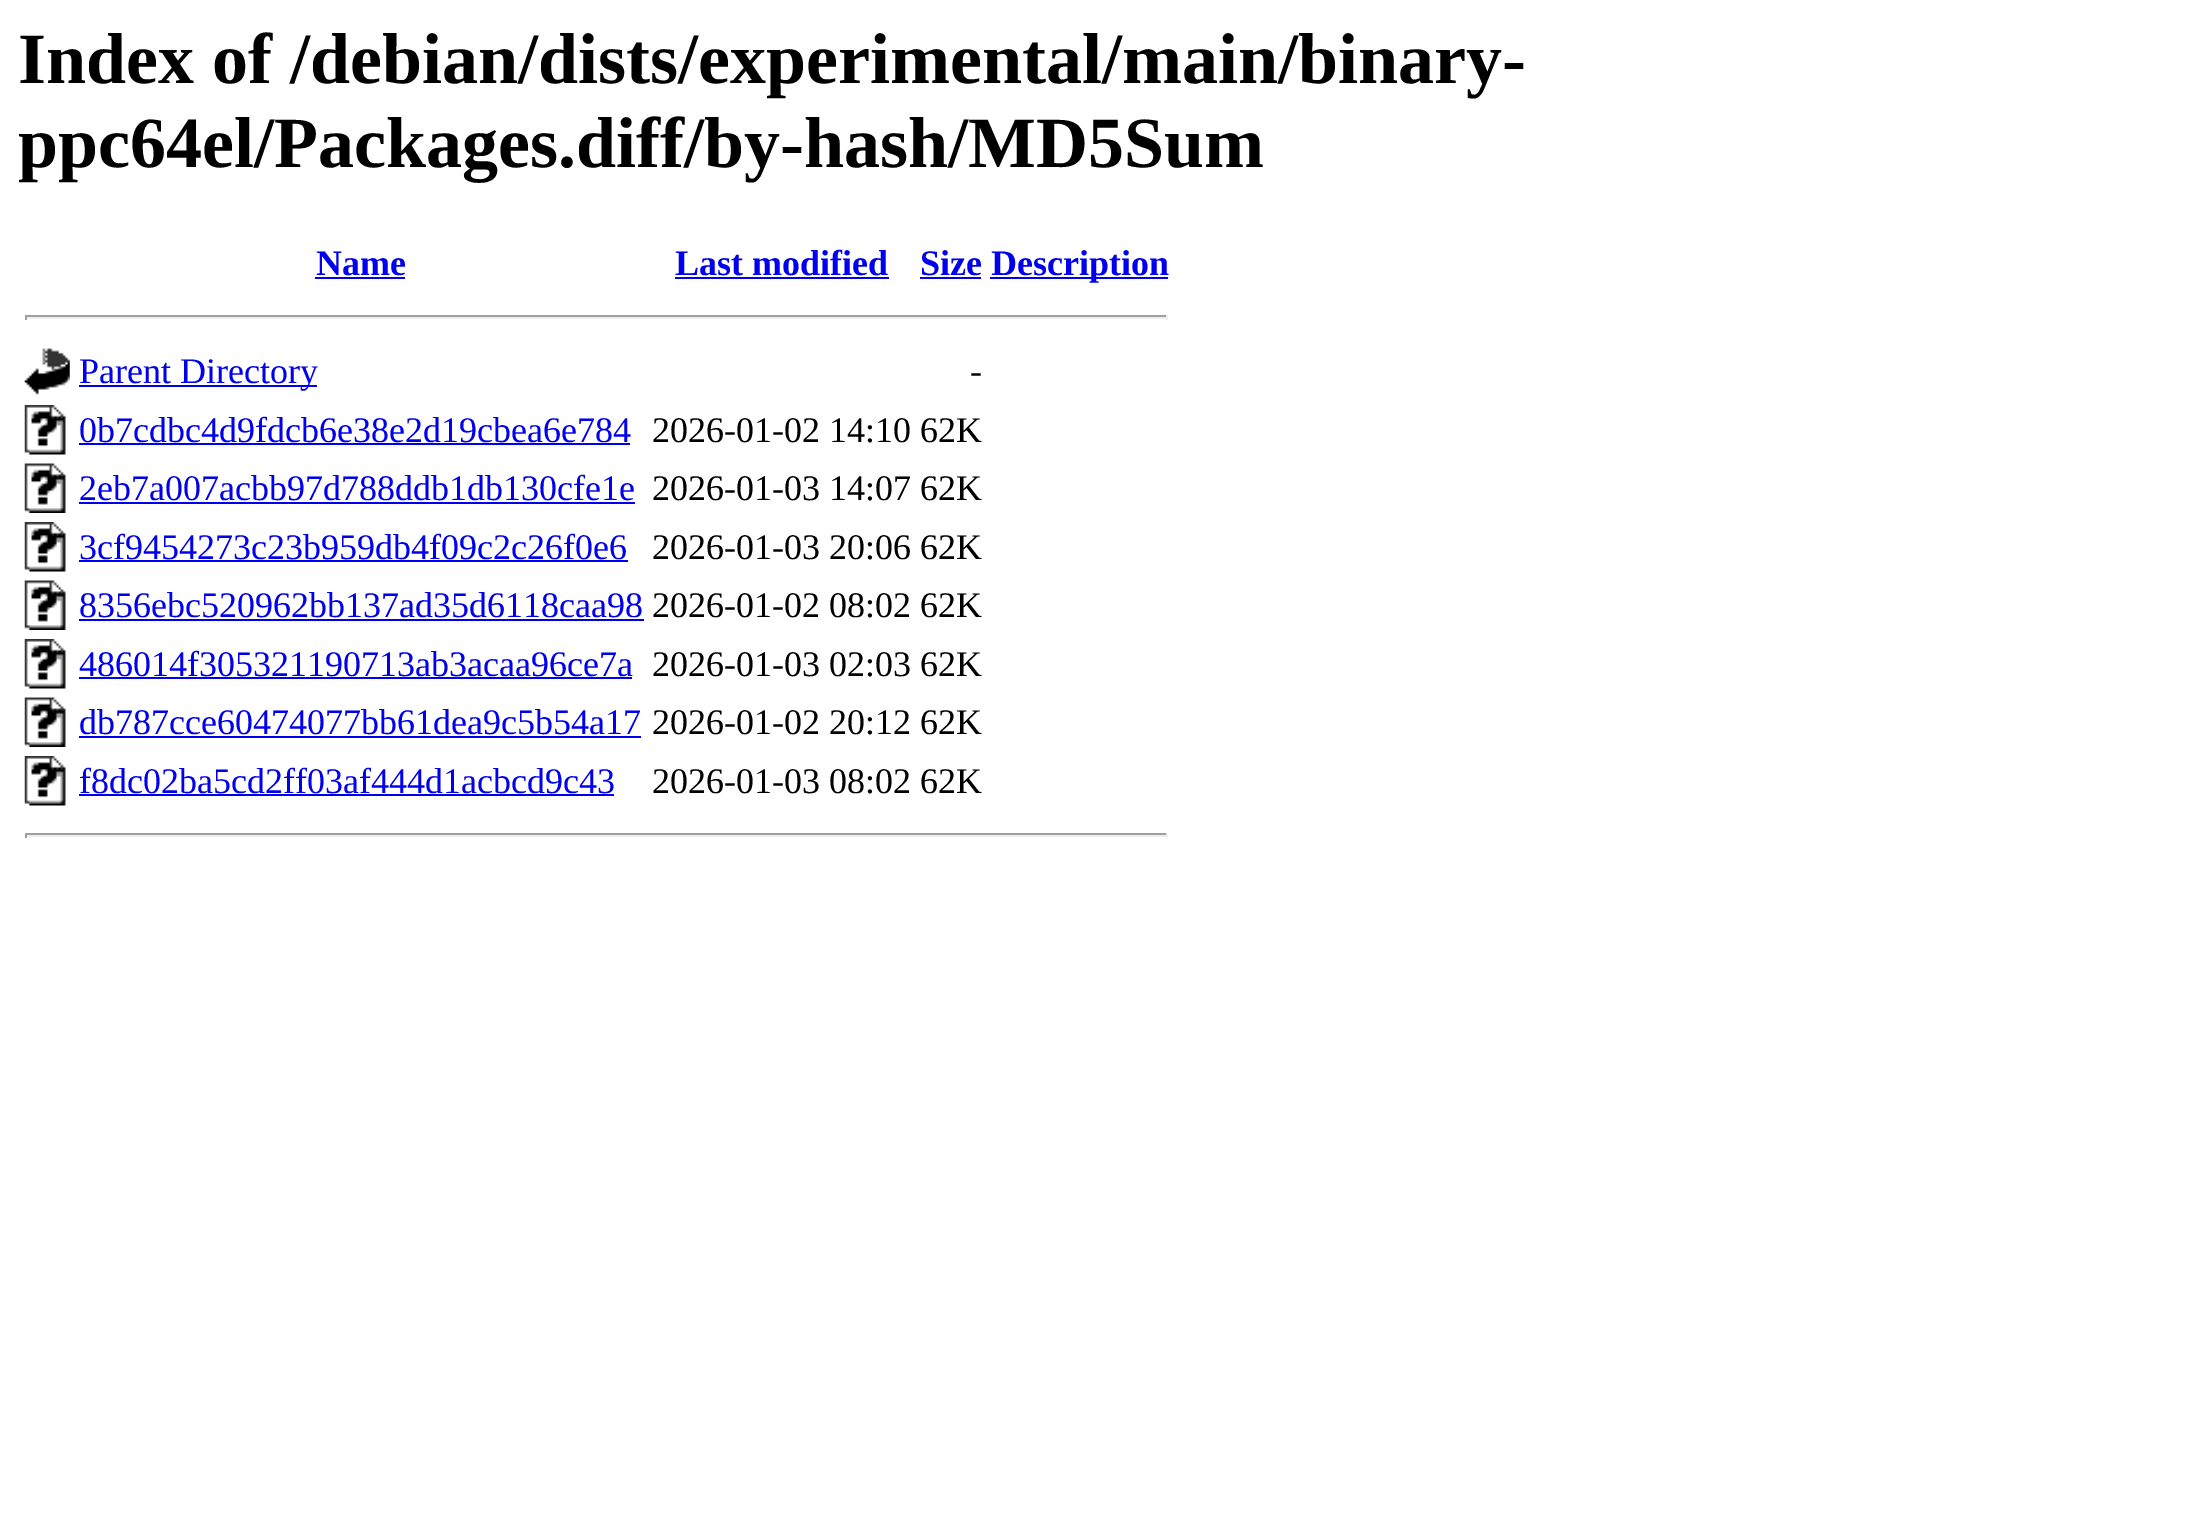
%!PS
<< /PageSize [2191 1518] >> setpagedevice
/co { dup -16 bitshift 255 div exch dup -8 bitshift 255 and 255 div exch 255 and 255 div setrgbcolor } def
/fn { [ exch dup neg 0 0 3 -1 roll 0 0 ] selectfont } def
/tx { co fn moveto show } def
/bx { co rectfill } def
/im { 5 dict begin { /h /w /y /x /name } { exch def } forall
  gsave x y translate w h scale
  w h 8 [w 0 0 h 0 0] name (r) file false 3 colorimage grestore end } def
0 1518 translate 1 -1 scale
4 setmiterlimit
0 0 2191 1518 16#FFFFFF bx
315 277 90 2 16#0000EE bx
675 277 214 2 16#0000EE bx
920 277 61 2 16#0000EE bx
990 277 178 2 16#0000EE bx
25 315 1143 2 16#9F9F9F bx
1166 315 2 5 16#EEEEEE bx
25 317 1143 2 16#EEEEEE bx
25 315 2 5 16#9F9F9F bx
(media/1.raw) 24 348 46 47 im
79 385 238 2 16#0000EE bx
(media/2.raw) 24 405 42 50 im
79 443 551 2 16#0000EE bx
(media/3.raw) 24 463 42 50 im
79 502 556 2 16#0000EE bx
(media/2.raw) 24 522 42 50 im
79 560 549 2 16#0000EE bx
(media/3.raw) 24 580 42 50 im
79 619 565 2 16#0000EE bx
(media/2.raw) 24 639 42 50 im
79 677 553 2 16#0000EE bx
(media/3.raw) 24 697 42 50 im
79 736 562 2 16#0000EE bx
(media/2.raw) 24 756 42 50 im
79 794 535 2 16#0000EE bx
25 833 1143 2 16#9F9F9F bx
1166 833 2 5 16#EEEEEE bx
25 835 1143 2 16#EEEEEE bx
25 833 2 5 16#9F9F9F bx
(Index of /debian/dists/experimental/main/binary-) 18 83 /LiberationSerif-Bold 72 16#000000 tx
(ppc64el/Packages.diff/by-hash/MD5Sum) 18 167 /LiberationSerif-Bold 72 16#000000 tx
(Name) 316 275 /LiberationSerif-Bold 36 16#0000EE tx
(Last modified) 675 275 /LiberationSerif-Bold 36 16#0000EE tx
(Size) 920 275 /LiberationSerif-Bold 36 16#0000EE tx
(Description) 991 275 /LiberationSerif-Bold 36 16#0000EE tx
(Parent Directory) 79 383 /LiberationSerif-Regular 36 16#0000EE tx
(-) 970 383 /LiberationSerif-Regular 36 16#000000 tx
(0b7cdbc4d9fdcb6e38e2d19cbea6e784) 79 442 /LiberationSerif-Regular 36 16#0000EE tx
(2026-01-02 14:10 62K) 652 442 /LiberationSerif-Regular 36 16#000000 tx
(2eb7a007acbb97d788ddb1db130cfe1e) 79 500 /LiberationSerif-Regular 36 16#0000EE tx
(2026-01-03 14:07 62K) 652 500 /LiberationSerif-Regular 36 16#000000 tx
(3cf9454273c23b959db4f09c2c26f0e6) 79 559 /LiberationSerif-Regular 36 16#0000EE tx
(2026-01-03 20:06 62K) 652 559 /LiberationSerif-Regular 36 16#000000 tx
(8356ebc520962bb137ad35d6118caa98) 79 617 /LiberationSerif-Regular 36 16#0000EE tx
(2026-01-02 08:02 62K) 652 617 /LiberationSerif-Regular 36 16#000000 tx
(486014f305321190713ab3acaa96ce7a) 79 676 /LiberationSerif-Regular 36 16#0000EE tx
(2026-01-03 02:03 62K) 652 676 /LiberationSerif-Regular 36 16#000000 tx
(db787cce60474077bb61dea9c5b54a17) 79 734 /LiberationSerif-Regular 36 16#0000EE tx
(2026-01-02 20:12 62K) 652 734 /LiberationSerif-Regular 36 16#000000 tx
(f8dc02ba5cd2ff03af444d1acbcd9c43) 79 793 /LiberationSerif-Regular 36 16#0000EE tx
(2026-01-03 08:02 62K) 652 793 /LiberationSerif-Regular 36 16#000000 tx
showpage
